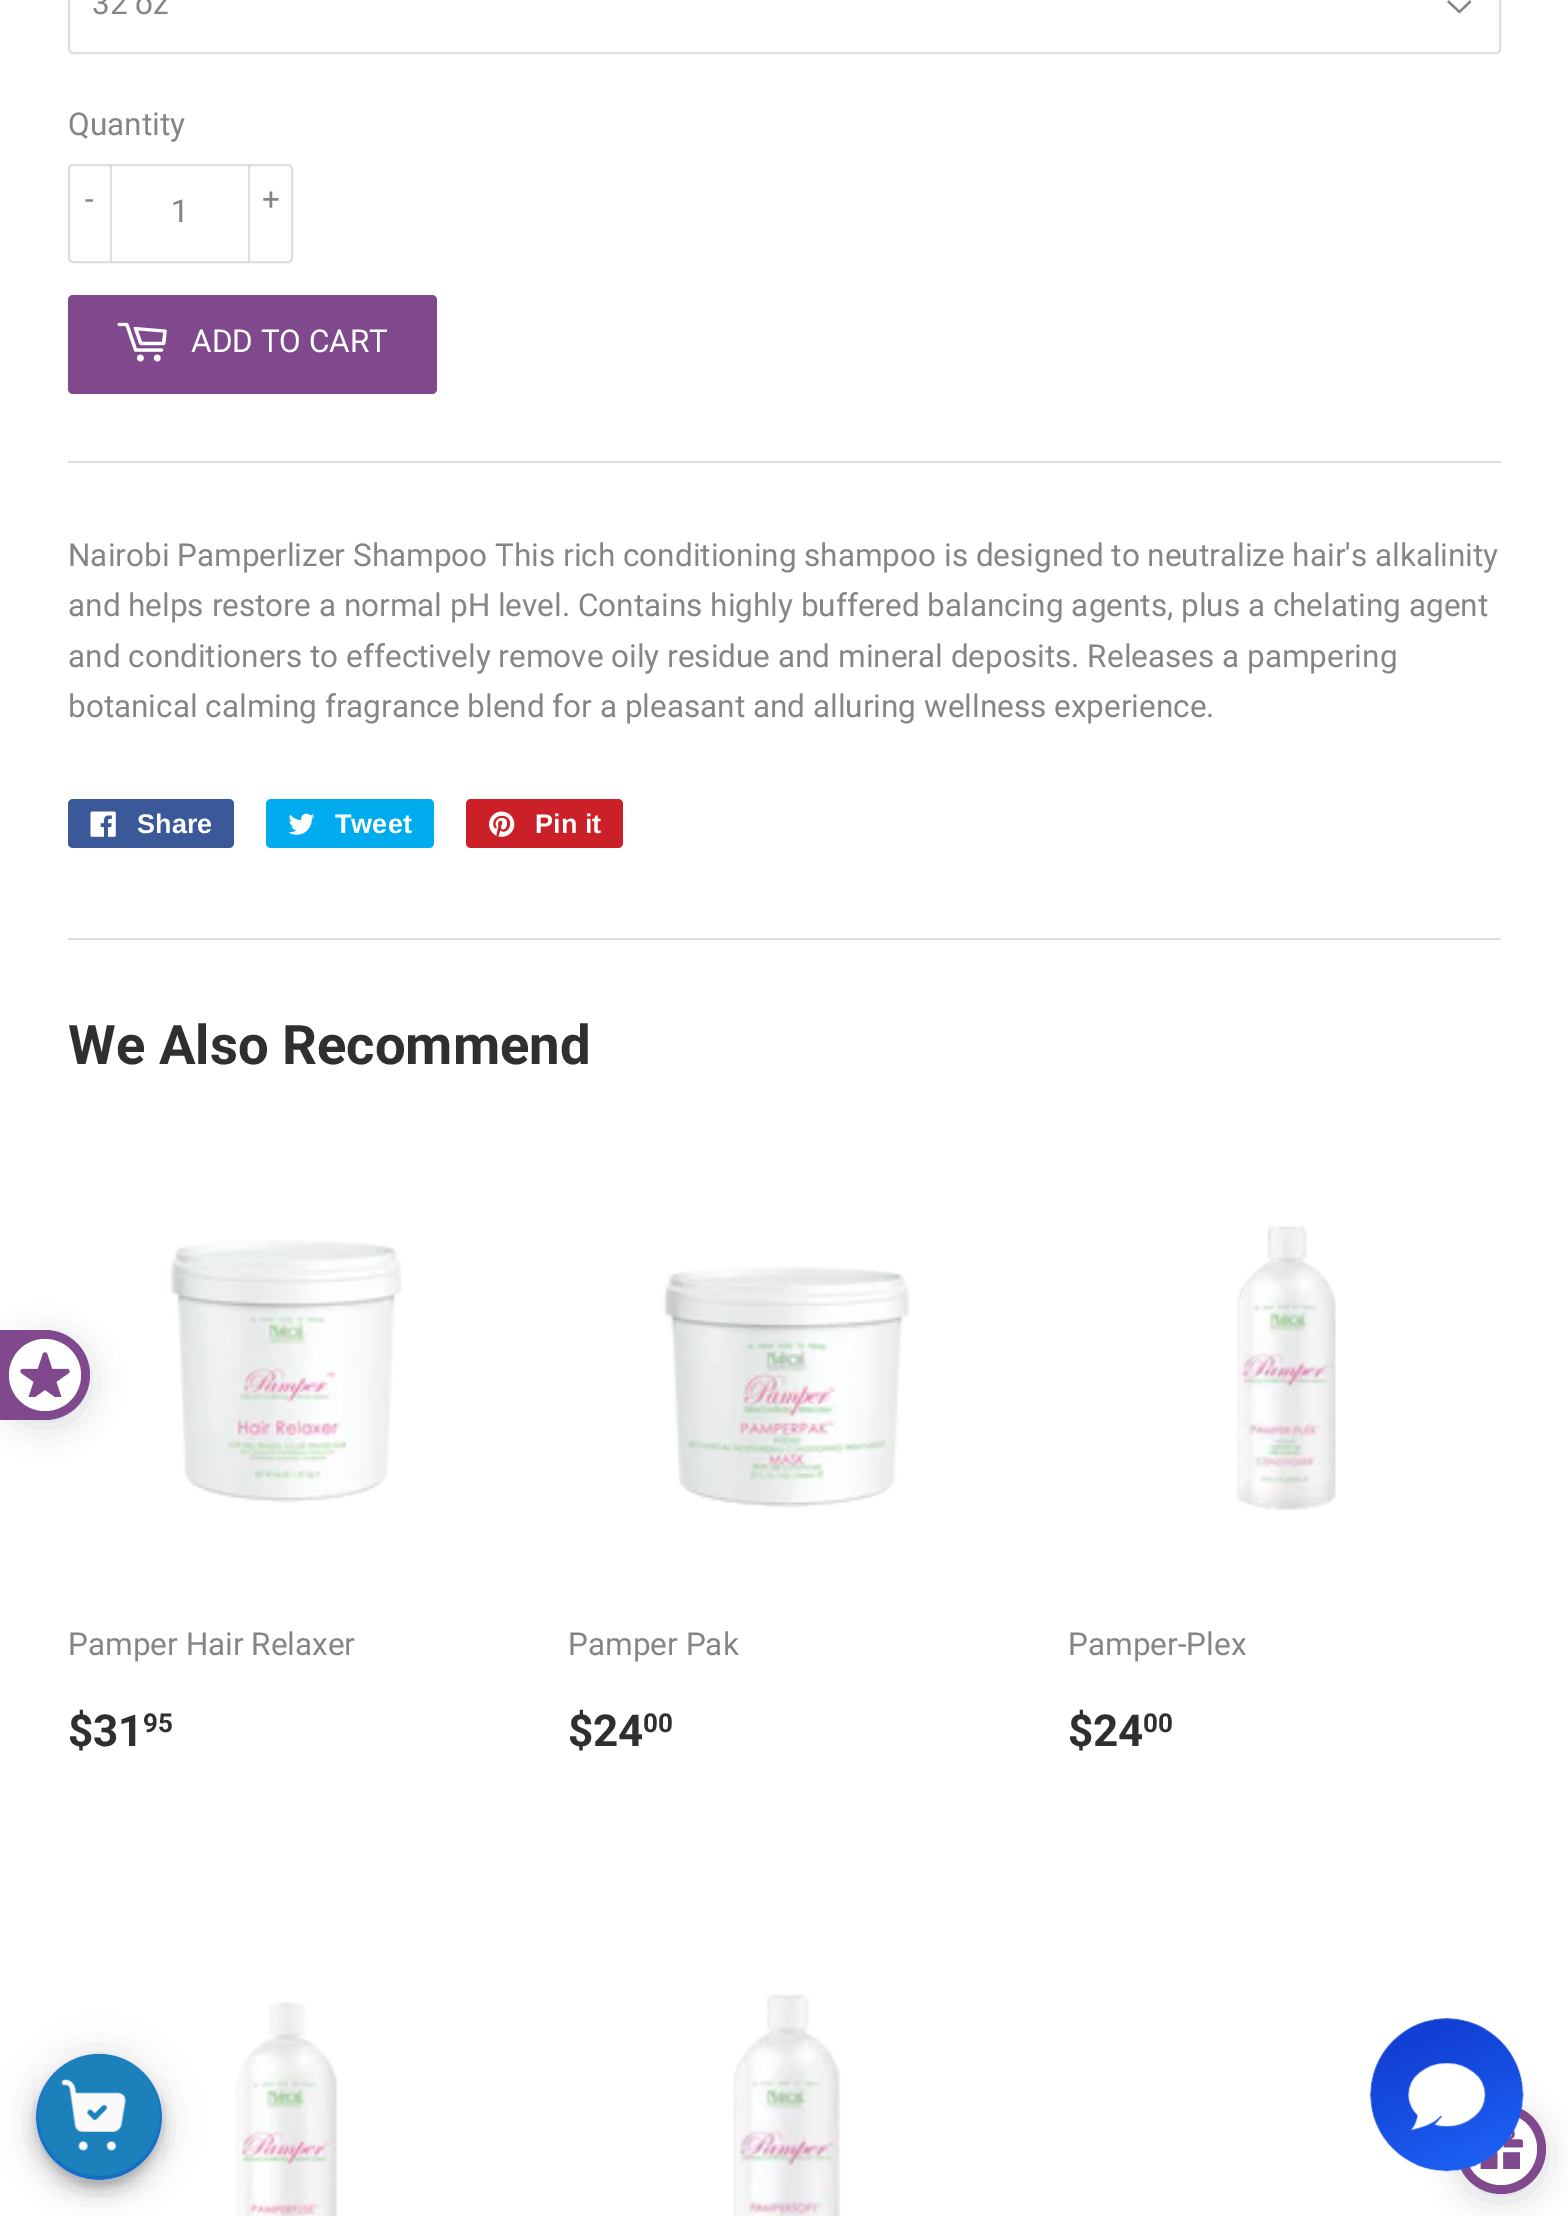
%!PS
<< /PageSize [1568 2216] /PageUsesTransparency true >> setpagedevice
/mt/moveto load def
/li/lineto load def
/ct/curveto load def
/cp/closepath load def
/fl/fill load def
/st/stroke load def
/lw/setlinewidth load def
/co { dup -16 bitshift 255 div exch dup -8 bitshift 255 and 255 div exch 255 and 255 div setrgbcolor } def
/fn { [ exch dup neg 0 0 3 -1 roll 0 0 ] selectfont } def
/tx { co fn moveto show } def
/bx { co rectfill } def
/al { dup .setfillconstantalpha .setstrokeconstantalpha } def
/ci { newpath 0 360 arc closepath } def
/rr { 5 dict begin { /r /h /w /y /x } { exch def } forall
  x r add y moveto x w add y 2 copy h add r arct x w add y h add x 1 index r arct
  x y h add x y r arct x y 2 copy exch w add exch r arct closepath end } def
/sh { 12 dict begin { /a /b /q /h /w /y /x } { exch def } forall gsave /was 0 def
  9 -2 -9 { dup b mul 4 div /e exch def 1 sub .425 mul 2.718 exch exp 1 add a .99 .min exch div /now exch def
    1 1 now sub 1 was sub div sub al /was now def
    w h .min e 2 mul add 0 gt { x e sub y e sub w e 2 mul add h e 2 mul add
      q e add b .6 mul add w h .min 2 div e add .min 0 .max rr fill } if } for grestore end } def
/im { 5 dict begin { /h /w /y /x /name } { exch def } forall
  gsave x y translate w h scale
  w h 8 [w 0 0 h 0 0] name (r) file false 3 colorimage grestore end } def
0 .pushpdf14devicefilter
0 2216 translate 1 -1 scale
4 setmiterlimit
0 0 1568 2216 16#FFFFFF bx
(media/1.raw) 1447 0 25 14 im
16#DEDEDE co
2 lw
69 -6 1431 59 4 rr st
69 165 223 97 4 rr st
110 164 2 99 16#DEDEDE bx
248 164 2 99 16#DEDEDE bx
16#80498E co
68 295 369 99 5 rr fl
(media/2.raw) 117 322 50 40 im
68 461 1433 2 16#DEDEDE bx
16#3B5998 co
68 799 166 49 5 rr fl
(media/3.raw) 90 811 26 26 im
16#00ACED co
266 799 168 49 5 rr fl
(media/4.raw) 288 813 27 22 im
16#CB2027 co
466 799 157 49 5 rr fl
(media/5.raw) 489 811 26 26 im
68 938 1433 2 16#DEDEDE bx
(media/6.raw) 170 1240 232 263 im
(media/7.raw) 663 1266 247 242 im
(media/8.raw) 1236 1226 100 285 im
(media/9.raw) 235 2002 103 214 im
(media/10.raw) 733 1994 108 222 im
16#112233 co
0 1337 90 90 45 16 .16 sh
16#80498E co
90 1375 mt 90 1400 70 1420 45 1420 ct 0 1420 li 0 1330 li 45 1330 li 70 1330 90 1350 90 1375 ct cp fl
16#FFFFFF co
45 1375 36 ci fl
(media/11.raw) 20 1352 50 45 im
16#000000 co
36 2057 126 126 63 20 .12 sh
36 2068 126 126 63 11 .14 sh
38 2063 122 122 61 5.5 .2 sh
16#1976D2 co
99 2117 63 ci fl
(media/12.raw) 36 2053 126 127 im
16#112233 co
1456 2111 90 90 45 16 .16 sh
16#80498E co
1501 2149 45 ci fl
16#FFFFFF co
1501 2149 36 ci fl
(media/14.raw) 1480 2130 43 39 im
(media/13.raw) 1370 2018 154 154 im
(32 oz) 92 14 /Roboto-Regular 31.5 16#858585 tx
(Quantity) 68 135 /Roboto-Regular 31.5 16#858585 tx
(-) 85 210 /Roboto-Regular 31.5 16#858585 tx
(1) 171 222 /Roboto-Regular 31.5 16#858585 tx
(+) 262 210 /Roboto-Regular 31.5 16#858585 tx
(ADD TO CART) 191 352 /Roboto-Regular 31.5 16#FFFFFF tx
(Nairobi Pamperlizer Shampoo This rich conditioning shampoo is designed to neutralize hair's alkalinity) 68 566 /Roboto-Regular 31.5 16#858585 tx
(and helps restore a normal pH level. Contains highly buffered balancing agents, plus a chelating agent) 68 616 /Roboto-Regular 31.5 16#858585 tx
(and conditioners to effectively remove oily residue and mineral deposits. Releases a pampering) 68 667 /Roboto-Regular 31.5 16#858585 tx
(botanical calming fragrance blend for a pleasant and alluring wellness experience.) 68 717 /Roboto-Regular 31.5 16#858585 tx
(Share) 137 833 /LiberationSans-Bold 27 16#FFFFFF tx
(Tweet) 335 833 /LiberationSans-Bold 27 16#FFFFFF tx
(Pin it) 535 833 /LiberationSans-Bold 27 16#FFFFFF tx
(We Also Recommend) 68 1064 /Roboto-Bold 54.5 16#2F2F2F tx
(Pamper Hair Relaxer) 68 1655 /Roboto-Regular 31.5 16#858585 tx
($31) 68 1746 /Roboto-Bold 44 16#2F2F2F tx
(95) 143 1732 /Roboto-Bold 26 16#2F2F2F tx
(Pamper Pak) 568 1655 /Roboto-Regular 31.5 16#858585 tx
($24) 568 1746 /Roboto-Bold 44 16#2F2F2F tx
(00) 643 1732 /Roboto-Bold 26 16#2F2F2F tx
(Pamper-Plex) 1068 1655 /Roboto-Regular 31.5 16#858585 tx
($24) 1068 1746 /Roboto-Bold 44 16#2F2F2F tx
(00) 1143 1732 /Roboto-Bold 26 16#2F2F2F tx
.poppdf14devicefilter showpage
